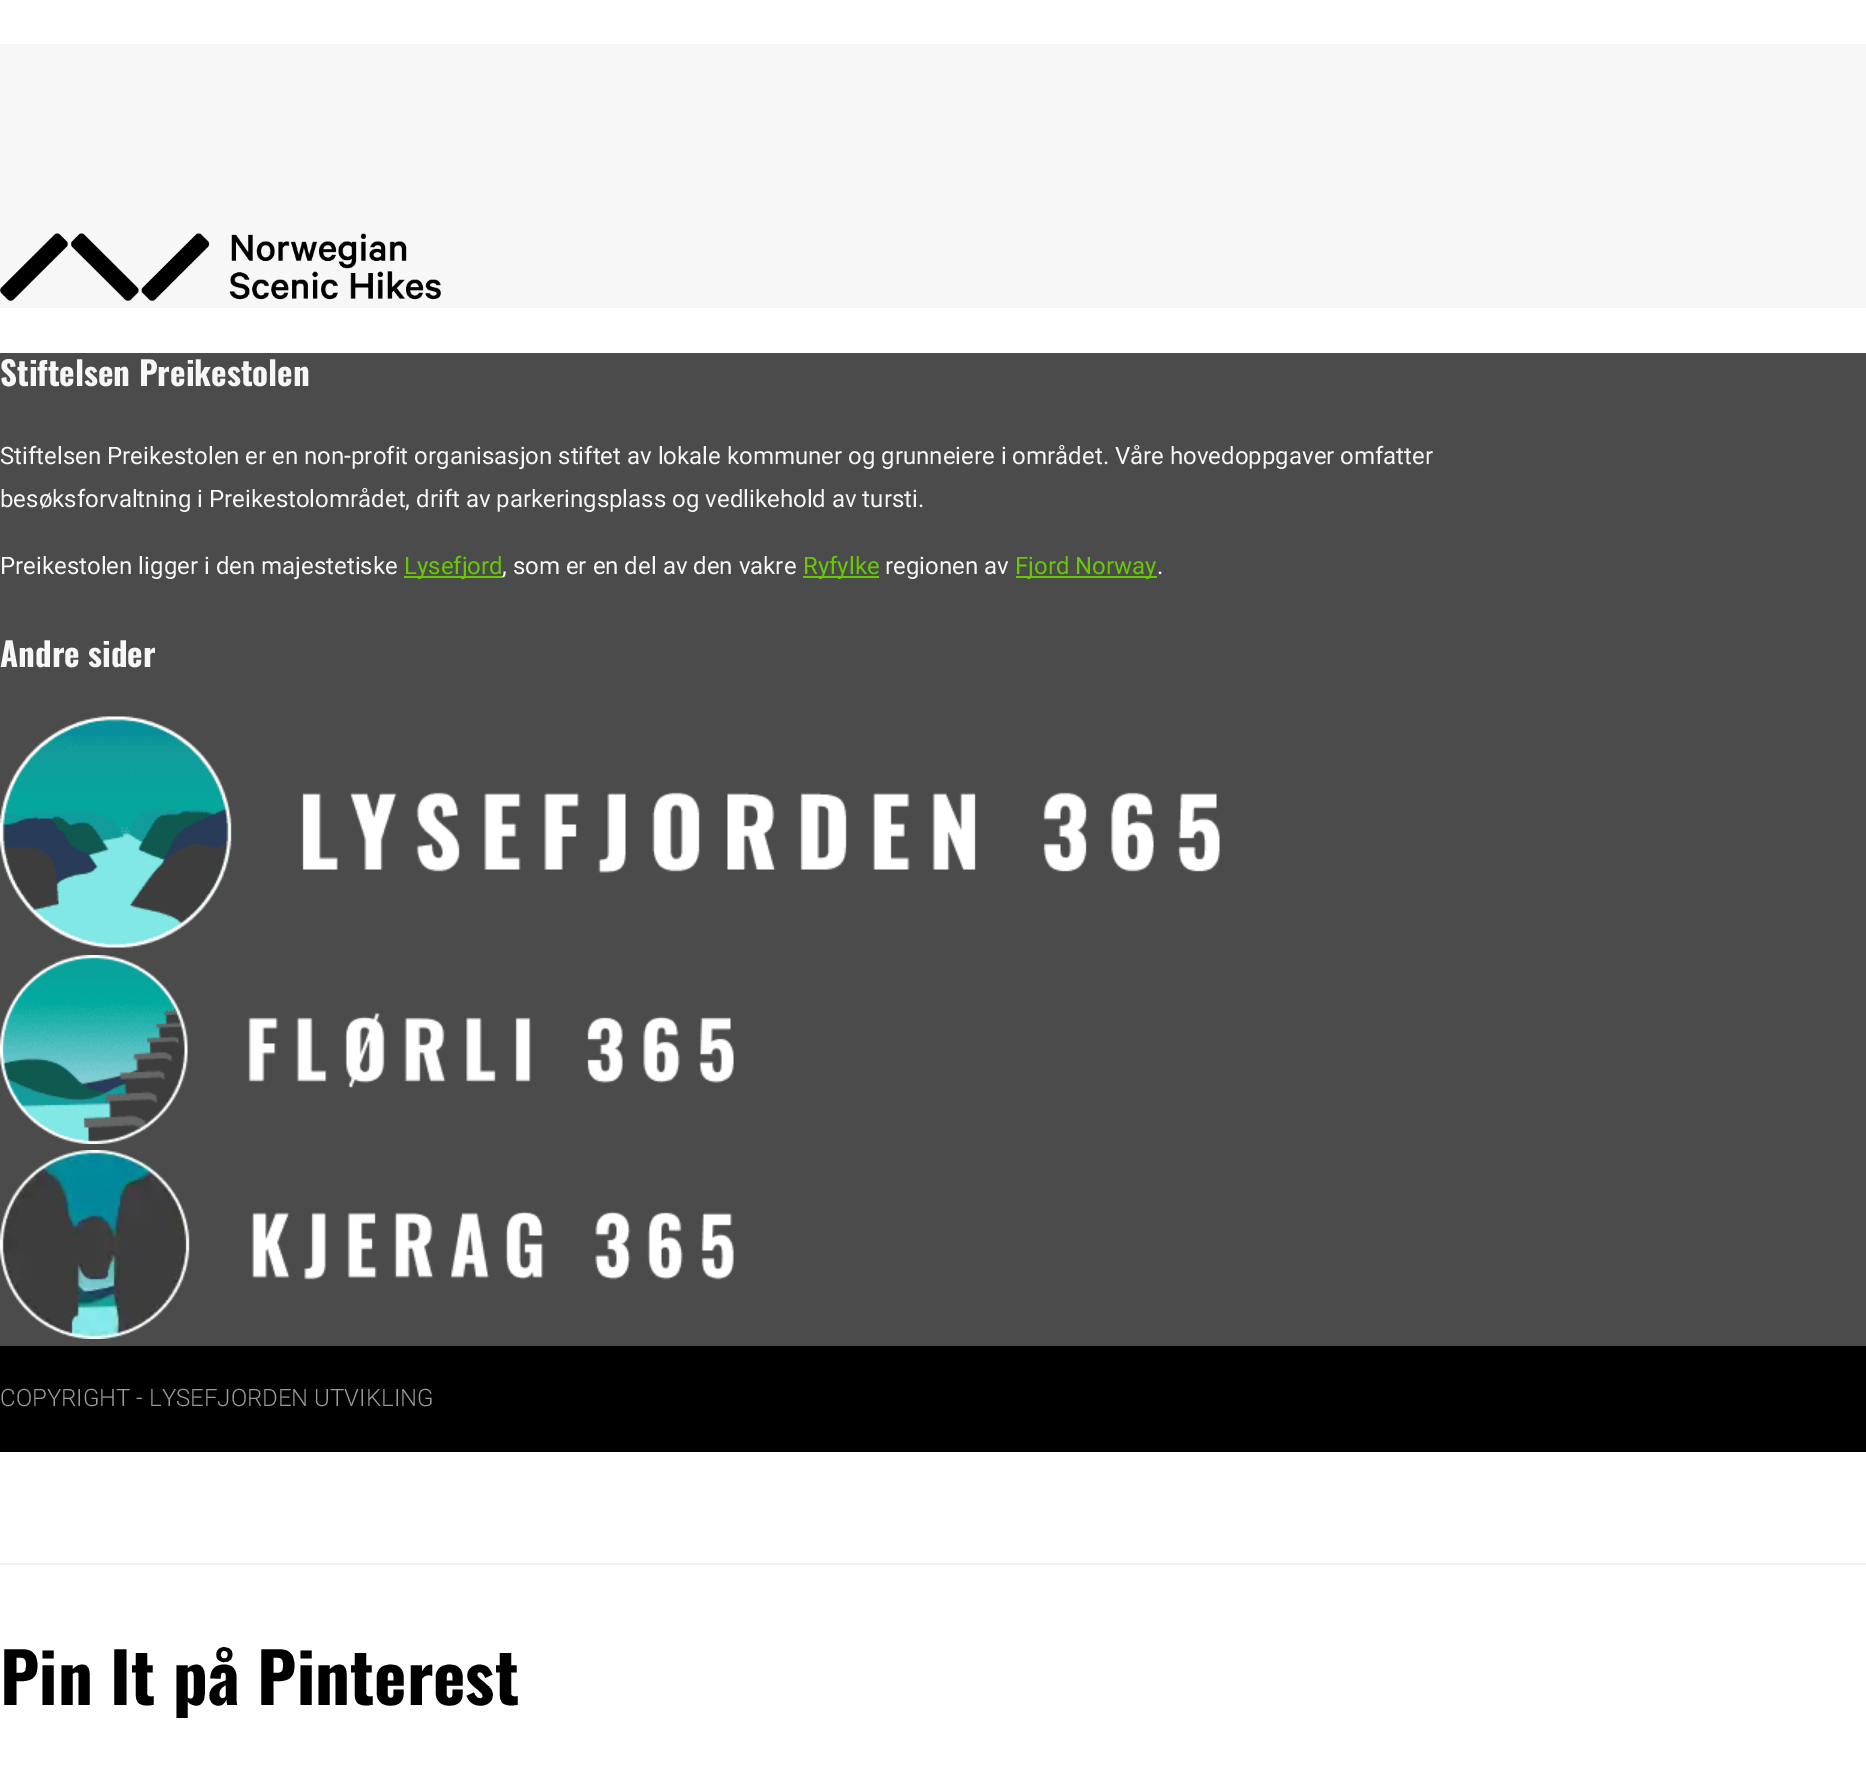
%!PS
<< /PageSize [1866 1778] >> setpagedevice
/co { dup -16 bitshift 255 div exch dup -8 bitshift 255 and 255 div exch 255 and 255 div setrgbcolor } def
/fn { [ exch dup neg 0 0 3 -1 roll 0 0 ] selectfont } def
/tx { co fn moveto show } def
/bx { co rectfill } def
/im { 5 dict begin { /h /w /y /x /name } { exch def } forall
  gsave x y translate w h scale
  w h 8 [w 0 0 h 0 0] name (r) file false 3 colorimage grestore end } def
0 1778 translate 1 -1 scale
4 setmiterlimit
0 0 1866 1778 16#FFFFFF bx
0 44 1866 264 16#F7F7F7 bx
(media/1.raw) 0 233 441 68 im
0 353 1866 993 16#4B4B4B bx
404 576 99 2 16#66C903 bx
803 576 76 2 16#66C903 bx
1016 576 141 2 16#66C903 bx
(media/2.raw) 0 716 1220 232 im
(media/3.raw) 0 955 734 189 im
(media/4.raw) 0 1150 734 189 im
0 1346 1866 106 16#000000 bx
0 1563 1866 2 16#F2F2F2 bx
(Stiftelsen Preikestolen) 0 386 /Oswald-Bold 33 16#F7F7F7 tx
(Stiftelsen Preikestolen er en non-profit organisasjon stiftet av lokale kommuner og grunneiere i området. Våre hovedoppgaver omfatter) 0 464 /Roboto-Regular 24 16#F7F7F7 tx
(besøksforvaltning i Preikestolområdet, drift av parkeringsplass og vedlikehold av tursti.) 0 507 /Roboto-Regular 24 16#F7F7F7 tx
(Preikestolen ligger i den majestetiske) 0 574 /Roboto-Regular 24 16#F7F7F7 tx
(Lysefjord) 404 574 /Roboto-Regular 24 16#66C903 tx
(, som er en del av den vakre) 502 574 /Roboto-Regular 24 16#F7F7F7 tx
(Ryfylke) 803 574 /Roboto-Regular 24 16#66C903 tx
(regionen av) 885 574 /Roboto-Regular 24 16#F7F7F7 tx
(Fjord Norway) 1015 574 /Roboto-Regular 24 16#66C903 tx
(.) 1157 574 /Roboto-Regular 24 16#F7F7F7 tx
(Andre sider) 0 667 /Oswald-Bold 33 16#F7F7F7 tx
(COPYRIGHT - LYSEFJORDEN UTVIKLING) 0 1406 /Roboto-Light 24 16#9B9B9B tx
(Pin It på Pinterest) 0 1705 /Oswald-Bold 69 16#000000 tx
showpage
